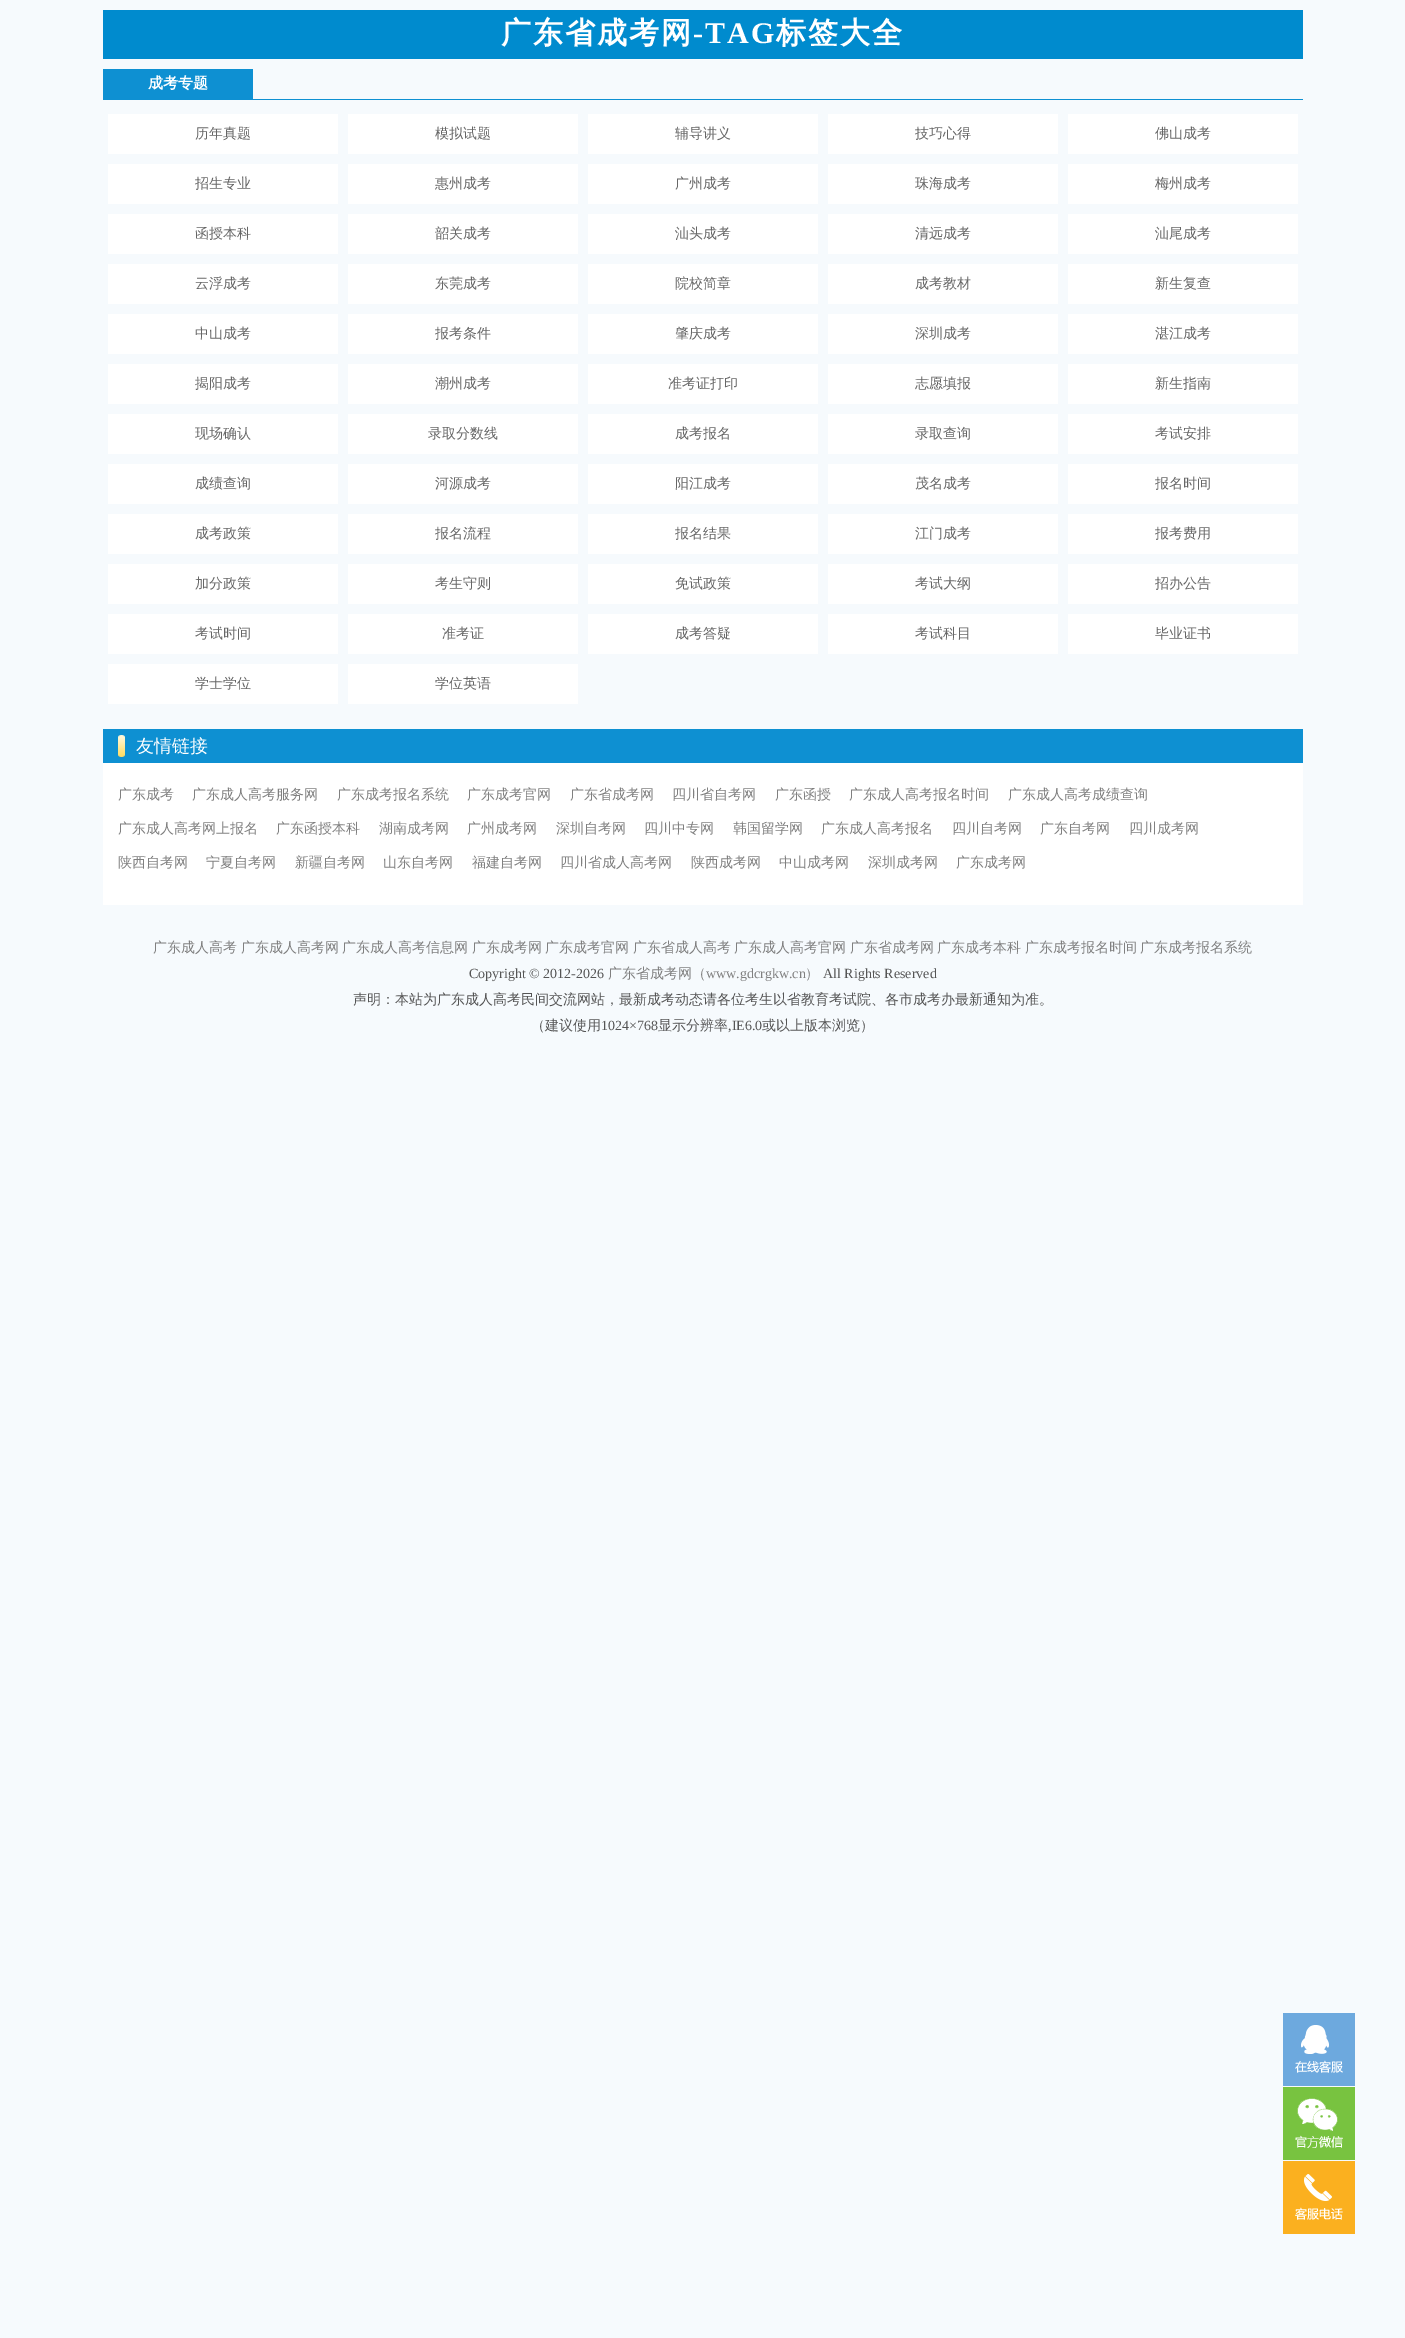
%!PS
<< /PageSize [1405 2338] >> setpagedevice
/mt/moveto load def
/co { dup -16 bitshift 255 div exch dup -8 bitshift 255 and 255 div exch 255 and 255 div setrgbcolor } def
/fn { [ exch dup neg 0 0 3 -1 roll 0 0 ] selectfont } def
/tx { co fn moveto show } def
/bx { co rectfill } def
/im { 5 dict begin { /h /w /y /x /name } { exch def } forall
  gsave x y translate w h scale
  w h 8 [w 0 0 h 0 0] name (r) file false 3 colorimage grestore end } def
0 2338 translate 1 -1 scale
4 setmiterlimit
0 0 1405 2338 16#F6FAFD bx
103 10 1200 49 16#008BCE bx
103 99 1200 1 16#0E90D2 bx
103 69 150 30 16#0E90D2 bx
108 114 230 40 16#FFFFFF bx
348 114 230 40 16#FFFFFF bx
588 114 230 40 16#FFFFFF bx
828 114 230 40 16#FFFFFF bx
1068 114 230 40 16#FFFFFF bx
108 164 230 40 16#FFFFFF bx
348 164 230 40 16#FFFFFF bx
588 164 230 40 16#FFFFFF bx
828 164 230 40 16#FFFFFF bx
1068 164 230 40 16#FFFFFF bx
108 214 230 40 16#FFFFFF bx
348 214 230 40 16#FFFFFF bx
588 214 230 40 16#FFFFFF bx
828 214 230 40 16#FFFFFF bx
1068 214 230 40 16#FFFFFF bx
108 264 230 40 16#FFFFFF bx
348 264 230 40 16#FFFFFF bx
588 264 230 40 16#FFFFFF bx
828 264 230 40 16#FFFFFF bx
1068 264 230 40 16#FFFFFF bx
108 314 230 40 16#FFFFFF bx
348 314 230 40 16#FFFFFF bx
588 314 230 40 16#FFFFFF bx
828 314 230 40 16#FFFFFF bx
1068 314 230 40 16#FFFFFF bx
108 364 230 40 16#FFFFFF bx
348 364 230 40 16#FFFFFF bx
588 364 230 40 16#FFFFFF bx
828 364 230 40 16#FFFFFF bx
1068 364 230 40 16#FFFFFF bx
108 414 230 40 16#FFFFFF bx
348 414 230 40 16#FFFFFF bx
588 414 230 40 16#FFFFFF bx
828 414 230 40 16#FFFFFF bx
1068 414 230 40 16#FFFFFF bx
108 464 230 40 16#FFFFFF bx
348 464 230 40 16#FFFFFF bx
588 464 230 40 16#FFFFFF bx
828 464 230 40 16#FFFFFF bx
1068 464 230 40 16#FFFFFF bx
108 514 230 40 16#FFFFFF bx
348 514 230 40 16#FFFFFF bx
588 514 230 40 16#FFFFFF bx
828 514 230 40 16#FFFFFF bx
1068 514 230 40 16#FFFFFF bx
108 564 230 40 16#FFFFFF bx
348 564 230 40 16#FFFFFF bx
588 564 230 40 16#FFFFFF bx
828 564 230 40 16#FFFFFF bx
1068 564 230 40 16#FFFFFF bx
108 614 230 40 16#FFFFFF bx
348 614 230 40 16#FFFFFF bx
588 614 230 40 16#FFFFFF bx
828 614 230 40 16#FFFFFF bx
1068 614 230 40 16#FFFFFF bx
108 664 230 40 16#FFFFFF bx
348 664 230 40 16#FFFFFF bx
103 763 1200 142 16#FFFFFF bx
103 729 1200 34 16#0E90D2 bx
(media/1.raw) 118 735 7 22 im
1283 2013 72 73 16#6DA9DE bx
(media/2.raw) 1295 2025 48 48 im
1283 2087 72 73 16#78C340 bx
(media/3.raw) 1295 2098 48 50 im
1283 2161 72 73 16#FBB01F bx
(media/4.raw) 1295 2174 48 46 im
/WenQuanYiZenHei-Bold 30 fn
16#FFFFFF co
501 43 mt 2 0 (广东省成考网) ashow
/LiberationSerif-Bold 30 fn
693 43 mt 2 0 (-TAG) ashow
/WenQuanYiZenHei-Bold 30 fn
776 43 mt 2 0 (标签大全) ashow
(成考专题) 148 88 /WenQuanYiZenHei-Bold 15 16#FFFFFF tx
(历年真题) 195 138 /WenQuanYiZenHei-Medium 14 16#666666 tx
(模拟试题) 435 138 /WenQuanYiZenHei-Medium 14 16#666666 tx
(辅导讲义) 675 138 /WenQuanYiZenHei-Medium 14 16#666666 tx
(技巧心得) 915 138 /WenQuanYiZenHei-Medium 14 16#666666 tx
(佛山成考) 1155 138 /WenQuanYiZenHei-Medium 14 16#666666 tx
(招生专业) 195 188 /WenQuanYiZenHei-Medium 14 16#666666 tx
(惠州成考) 435 188 /WenQuanYiZenHei-Medium 14 16#666666 tx
(广州成考) 675 188 /WenQuanYiZenHei-Medium 14 16#666666 tx
(珠海成考) 915 188 /WenQuanYiZenHei-Medium 14 16#666666 tx
(梅州成考) 1155 188 /WenQuanYiZenHei-Medium 14 16#666666 tx
(函授本科) 195 238 /WenQuanYiZenHei-Medium 14 16#666666 tx
(韶关成考) 435 238 /WenQuanYiZenHei-Medium 14 16#666666 tx
(汕头成考) 675 238 /WenQuanYiZenHei-Medium 14 16#666666 tx
(清远成考) 915 238 /WenQuanYiZenHei-Medium 14 16#666666 tx
(汕尾成考) 1155 238 /WenQuanYiZenHei-Medium 14 16#666666 tx
(云浮成考) 195 288 /WenQuanYiZenHei-Medium 14 16#666666 tx
(东莞成考) 435 288 /WenQuanYiZenHei-Medium 14 16#666666 tx
(院校简章) 675 288 /WenQuanYiZenHei-Medium 14 16#666666 tx
(成考教材) 915 288 /WenQuanYiZenHei-Medium 14 16#666666 tx
(新生复查) 1155 288 /WenQuanYiZenHei-Medium 14 16#666666 tx
(中山成考) 195 338 /WenQuanYiZenHei-Medium 14 16#666666 tx
(报考条件) 435 338 /WenQuanYiZenHei-Medium 14 16#666666 tx
(肇庆成考) 675 338 /WenQuanYiZenHei-Medium 14 16#666666 tx
(深圳成考) 915 338 /WenQuanYiZenHei-Medium 14 16#666666 tx
(湛江成考) 1155 338 /WenQuanYiZenHei-Medium 14 16#666666 tx
(揭阳成考) 195 388 /WenQuanYiZenHei-Medium 14 16#666666 tx
(潮州成考) 435 388 /WenQuanYiZenHei-Medium 14 16#666666 tx
(准考证打印) 668 388 /WenQuanYiZenHei-Medium 14 16#666666 tx
(志愿填报) 915 388 /WenQuanYiZenHei-Medium 14 16#666666 tx
(新生指南) 1155 388 /WenQuanYiZenHei-Medium 14 16#666666 tx
(现场确认) 195 438 /WenQuanYiZenHei-Medium 14 16#666666 tx
(录取分数线) 428 438 /WenQuanYiZenHei-Medium 14 16#666666 tx
(成考报名) 675 438 /WenQuanYiZenHei-Medium 14 16#666666 tx
(录取查询) 915 438 /WenQuanYiZenHei-Medium 14 16#666666 tx
(考试安排) 1155 438 /WenQuanYiZenHei-Medium 14 16#666666 tx
(成绩查询) 195 488 /WenQuanYiZenHei-Medium 14 16#666666 tx
(河源成考) 435 488 /WenQuanYiZenHei-Medium 14 16#666666 tx
(阳江成考) 675 488 /WenQuanYiZenHei-Medium 14 16#666666 tx
(茂名成考) 915 488 /WenQuanYiZenHei-Medium 14 16#666666 tx
(报名时间) 1155 488 /WenQuanYiZenHei-Medium 14 16#666666 tx
(成考政策) 195 538 /WenQuanYiZenHei-Medium 14 16#666666 tx
(报名流程) 435 538 /WenQuanYiZenHei-Medium 14 16#666666 tx
(报名结果) 675 538 /WenQuanYiZenHei-Medium 14 16#666666 tx
(江门成考) 915 538 /WenQuanYiZenHei-Medium 14 16#666666 tx
(报考费用) 1155 538 /WenQuanYiZenHei-Medium 14 16#666666 tx
(加分政策) 195 588 /WenQuanYiZenHei-Medium 14 16#666666 tx
(考生守则) 435 588 /WenQuanYiZenHei-Medium 14 16#666666 tx
(免试政策) 675 588 /WenQuanYiZenHei-Medium 14 16#666666 tx
(考试大纲) 915 588 /WenQuanYiZenHei-Medium 14 16#666666 tx
(招办公告) 1155 588 /WenQuanYiZenHei-Medium 14 16#666666 tx
(考试时间) 195 638 /WenQuanYiZenHei-Medium 14 16#666666 tx
(准考证) 442 638 /WenQuanYiZenHei-Medium 14 16#666666 tx
(成考答疑) 675 638 /WenQuanYiZenHei-Medium 14 16#666666 tx
(考试科目) 915 638 /WenQuanYiZenHei-Medium 14 16#666666 tx
(毕业证书) 1155 638 /WenQuanYiZenHei-Medium 14 16#666666 tx
(学士学位) 195 688 /WenQuanYiZenHei-Medium 14 16#666666 tx
(学位英语) 435 688 /WenQuanYiZenHei-Medium 14 16#666666 tx
(友情链接) 136 752 /WenQuanYiZenHei-Medium 18 16#FFFFFF tx
(广东成考) 118 799 /WenQuanYiZenHei-Medium 14 16#808080 tx
(广东成人高考服务网) 192 799 /WenQuanYiZenHei-Medium 14 16#808080 tx
(广东成考报名系统) 337 799 /WenQuanYiZenHei-Medium 14 16#808080 tx
(广东成考官网) 467 799 /WenQuanYiZenHei-Medium 14 16#808080 tx
(广东省成考网) 570 799 /WenQuanYiZenHei-Medium 14 16#808080 tx
(四川省自考网) 672 799 /WenQuanYiZenHei-Medium 14 16#808080 tx
(广东函授) 775 799 /WenQuanYiZenHei-Medium 14 16#808080 tx
(广东成人高考报名时间) 849 799 /WenQuanYiZenHei-Medium 14 16#808080 tx
(广东成人高考成绩查询) 1008 799 /WenQuanYiZenHei-Medium 14 16#808080 tx
(广东成人高考网上报名) 118 833 /WenQuanYiZenHei-Medium 14 16#808080 tx
(广东函授本科) 276 833 /WenQuanYiZenHei-Medium 14 16#808080 tx
(湖南成考网) 379 833 /WenQuanYiZenHei-Medium 14 16#808080 tx
(广州成考网) 467 833 /WenQuanYiZenHei-Medium 14 16#808080 tx
(深圳自考网) 556 833 /WenQuanYiZenHei-Medium 14 16#808080 tx
(四川中专网) 644 833 /WenQuanYiZenHei-Medium 14 16#808080 tx
(韩国留学网) 733 833 /WenQuanYiZenHei-Medium 14 16#808080 tx
(广东成人高考报名) 821 833 /WenQuanYiZenHei-Medium 14 16#808080 tx
(四川自考网) 952 833 /WenQuanYiZenHei-Medium 14 16#808080 tx
(广东自考网) 1040 833 /WenQuanYiZenHei-Medium 14 16#808080 tx
(四川成考网) 1129 833 /WenQuanYiZenHei-Medium 14 16#808080 tx
(陕西自考网) 118 867 /WenQuanYiZenHei-Medium 14 16#808080 tx
(宁夏自考网) 206 867 /WenQuanYiZenHei-Medium 14 16#808080 tx
(新疆自考网) 295 867 /WenQuanYiZenHei-Medium 14 16#808080 tx
(山东自考网) 383 867 /WenQuanYiZenHei-Medium 14 16#808080 tx
(福建自考网) 472 867 /WenQuanYiZenHei-Medium 14 16#808080 tx
(四川省成人高考网) 560 867 /WenQuanYiZenHei-Medium 14 16#808080 tx
(陕西成考网) 691 867 /WenQuanYiZenHei-Medium 14 16#808080 tx
(中山成考网) 779 867 /WenQuanYiZenHei-Medium 14 16#808080 tx
(深圳成考网) 868 867 /WenQuanYiZenHei-Medium 14 16#808080 tx
(广东成考网) 956 867 /WenQuanYiZenHei-Medium 14 16#808080 tx
(广东成人高考) 153 952 /WenQuanYiZenHei-Medium 14 16#808080 tx
(广东成人高考网) 241 952 /WenQuanYiZenHei-Medium 14 16#808080 tx
(广东成人高考信息网) 342 952 /WenQuanYiZenHei-Medium 14 16#808080 tx
(广东成考网) 472 952 /WenQuanYiZenHei-Medium 14 16#808080 tx
(广东成考官网) 545 952 /WenQuanYiZenHei-Medium 14 16#808080 tx
(广东省成人高考) 633 952 /WenQuanYiZenHei-Medium 14 16#808080 tx
(广东成人高考官网) 734 952 /WenQuanYiZenHei-Medium 14 16#808080 tx
(广东省成考网) 850 952 /WenQuanYiZenHei-Medium 14 16#808080 tx
(广东成考本科) 937 952 /WenQuanYiZenHei-Medium 14 16#808080 tx
(广东成考报名时间) 1025 952 /WenQuanYiZenHei-Medium 14 16#808080 tx
(广东成考报名系统) 1140 952 /WenQuanYiZenHei-Medium 14 16#808080 tx
(Copyright © 2012-2026) 469 978 /LiberationSerif-Regular 14 16#555555 tx
(广东省成考网（) 608 978 /WenQuanYiZenHei-Medium 14 16#808080 tx
(www.gdcrgkw.cn) 706 978 /LiberationSerif-Regular 14 16#808080 tx
(）) 805 978 /WenQuanYiZenHei-Medium 14 16#808080 tx
(All Rights Reserved) 823 978 /LiberationSerif-Regular 14 16#555555 tx
(声明：本站为广东成人高考民间交流网站，最新成考动态请各位考生以省教育考试院、各市成考办最新通知为准。) 353 1004 /WenQuanYiZenHei-Medium 14 16#555555 tx
(（建议使用) 531 1030 /WenQuanYiZenHei-Medium 14 16#555555 tx
(1024×768) 601 1030 /LiberationSerif-Regular 14 16#555555 tx
(显示分辨率) 658 1030 /WenQuanYiZenHei-Medium 14 16#555555 tx
(,IE6.0) 728 1030 /LiberationSerif-Regular 14 16#555555 tx
(或以上版本浏览）) 762 1030 /WenQuanYiZenHei-Medium 14 16#555555 tx
showpage
